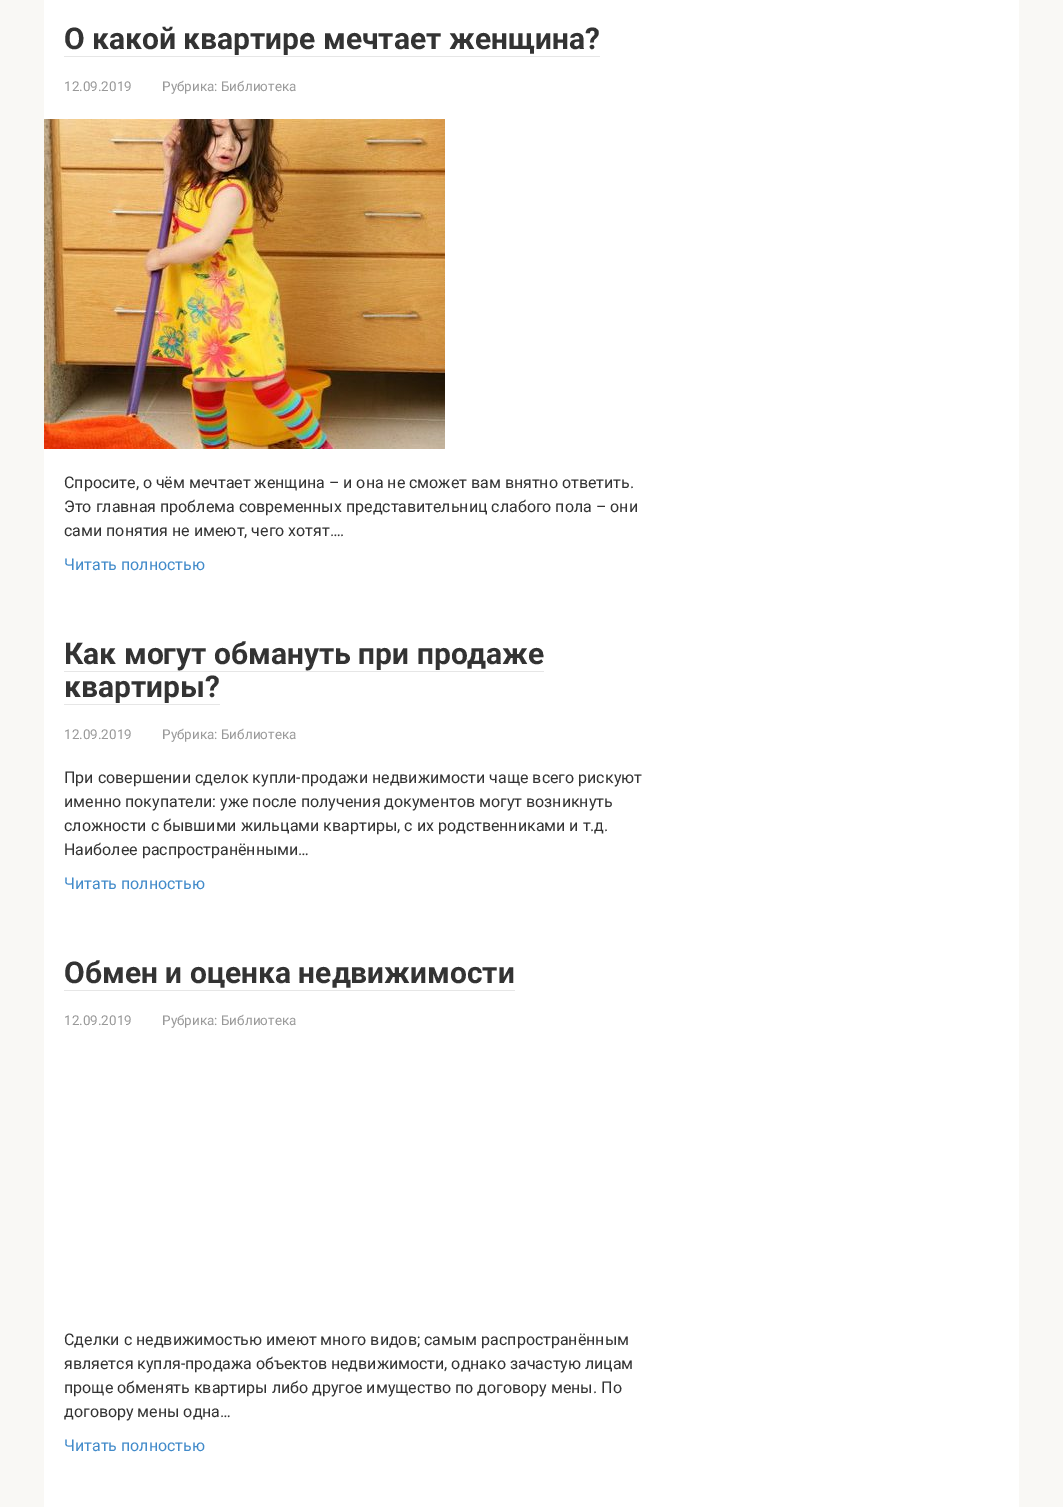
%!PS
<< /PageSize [1063 1507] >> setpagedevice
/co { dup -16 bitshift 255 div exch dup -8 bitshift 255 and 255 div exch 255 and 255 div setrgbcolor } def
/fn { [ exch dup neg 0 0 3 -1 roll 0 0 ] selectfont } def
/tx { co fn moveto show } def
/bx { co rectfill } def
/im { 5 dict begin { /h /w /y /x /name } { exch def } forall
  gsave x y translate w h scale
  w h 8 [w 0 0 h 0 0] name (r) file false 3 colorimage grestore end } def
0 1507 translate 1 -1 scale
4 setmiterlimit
0 0 1063 1507 16#F9F8F5 bx
44 0 975 1507 16#FFFFFF bx
64 56 536 1 16#E6E6E6 bx
(media/1.raw) 44 119 401 330 im
64 671 480 1 16#E6E6E6 bx
64 704 156 1 16#E6E6E6 bx
64 990 451 1 16#E6E6E6 bx
(О какой квартире мечтает женщина?) 64 49 /Roboto-Bold 30 16#333333 tx
(12.09.2019) 64 91 /Roboto-Regular 13.5 16#999999 tx
(Рубрика: Библиотека) 162 91 /Roboto-Regular 13.5 16#999999 tx
(Спросите, о чём мечтает женщина – и она не сможет вам внятно ответить.) 64 488 /Roboto-Regular 16 16#333333 tx
(Это главная проблема современных представительниц слабого пола – они) 64 512 /Roboto-Regular 16 16#333333 tx
(сами понятия не имеют, чего хотят….) 64 536 /Roboto-Regular 16 16#333333 tx
(Читать полностью) 64 570 /Roboto-Regular 16 16#428BCA tx
(Как могут обмануть при продаже) 64 664 /Roboto-Bold 30 16#333333 tx
(квартиры?) 64 697 /Roboto-Bold 30 16#333333 tx
(12.09.2019) 64 739 /Roboto-Regular 13.5 16#999999 tx
(Рубрика: Библиотека) 162 739 /Roboto-Regular 13.5 16#999999 tx
(При совершении сделок купли-продажи недвижимости чаще всего рискуют) 64 783 /Roboto-Regular 16 16#333333 tx
(именно покупатели: уже после получения документов могут возникнуть) 64 807 /Roboto-Regular 16 16#333333 tx
(сложности с бывшими жильцами квартиры, с их родственниками и т.д.) 64 831 /Roboto-Regular 16 16#333333 tx
(Наиболее распространёнными…) 64 855 /Roboto-Regular 16 16#333333 tx
(Читать полностью) 64 889 /Roboto-Regular 16 16#428BCA tx
(Обмен и оценка недвижимости) 64 983 /Roboto-Bold 30 16#333333 tx
(12.09.2019) 64 1025 /Roboto-Regular 13.5 16#999999 tx
(Рубрика: Библиотека) 162 1025 /Roboto-Regular 13.5 16#999999 tx
(Сделки с недвижимостью имеют много видов; самым распространённым) 64 1345 /Roboto-Regular 16 16#333333 tx
(является купля-продажа объектов недвижимости, однако зачастую лицам) 64 1369 /Roboto-Regular 16 16#333333 tx
(проще обменять квартиры либо другое имущество по договору мены. По) 64 1393 /Roboto-Regular 16 16#333333 tx
(договору мены одна…) 64 1417 /Roboto-Regular 16 16#333333 tx
(Читать полностью) 64 1451 /Roboto-Regular 16 16#428BCA tx
showpage
